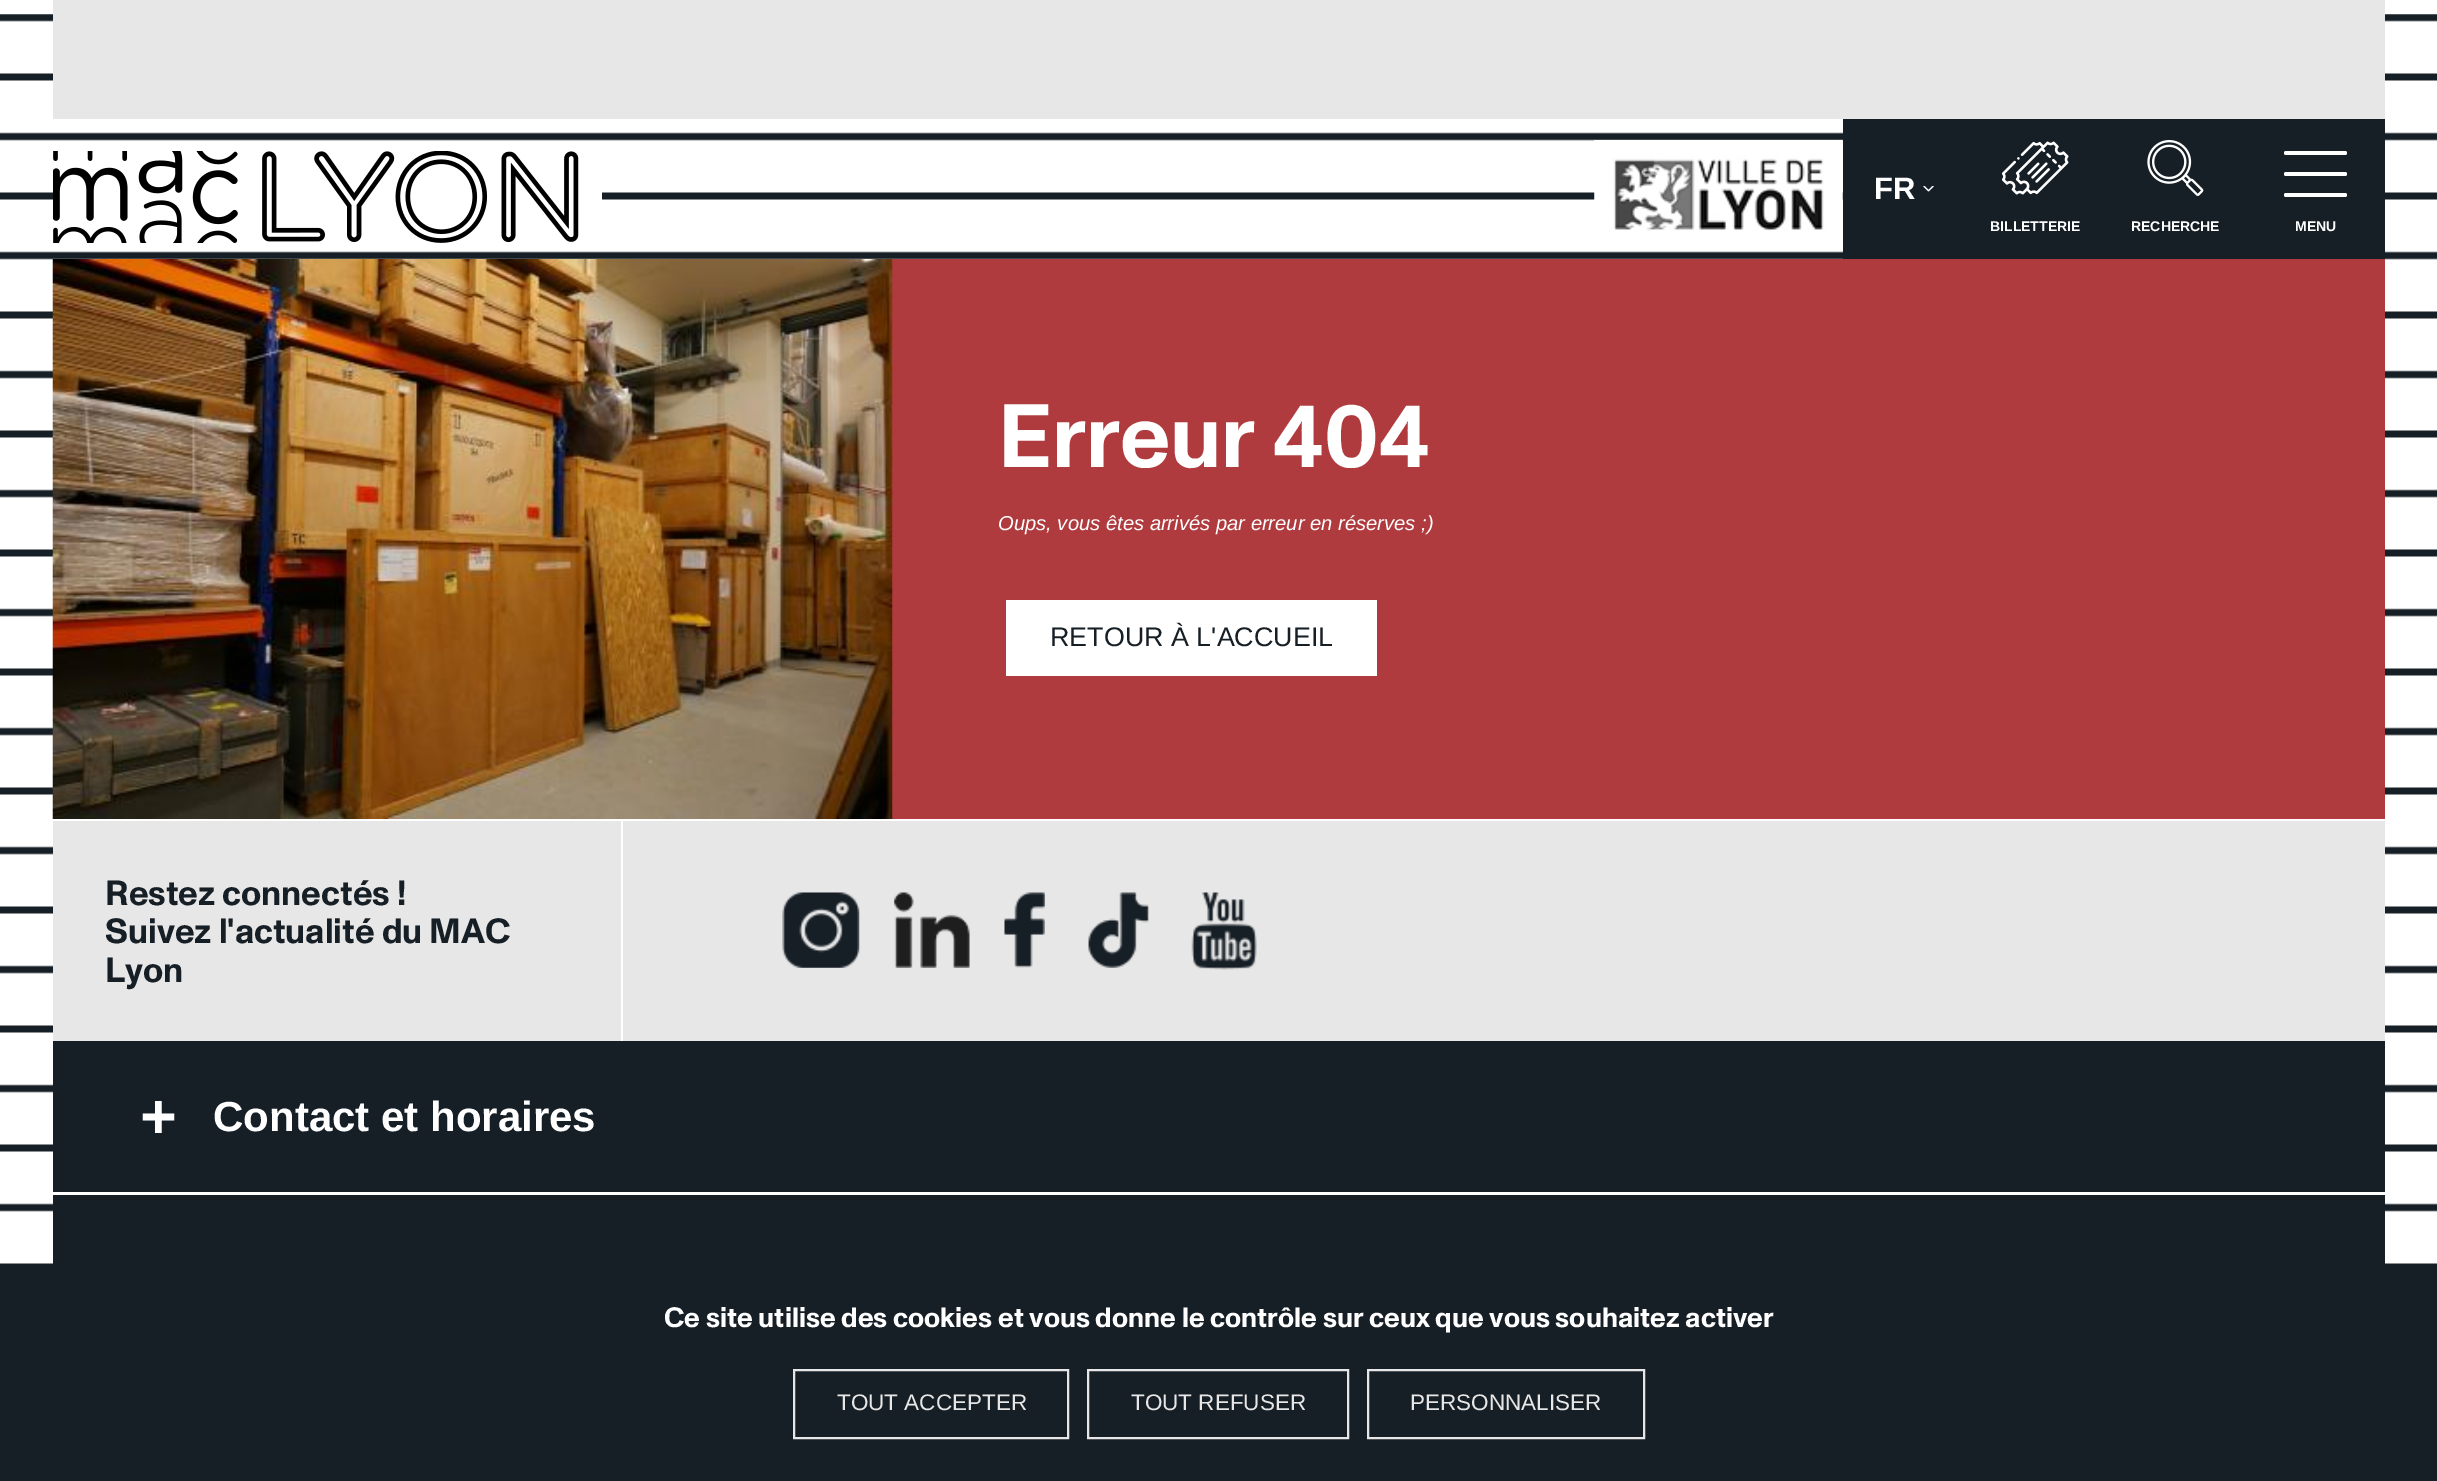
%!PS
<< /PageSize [2437 1481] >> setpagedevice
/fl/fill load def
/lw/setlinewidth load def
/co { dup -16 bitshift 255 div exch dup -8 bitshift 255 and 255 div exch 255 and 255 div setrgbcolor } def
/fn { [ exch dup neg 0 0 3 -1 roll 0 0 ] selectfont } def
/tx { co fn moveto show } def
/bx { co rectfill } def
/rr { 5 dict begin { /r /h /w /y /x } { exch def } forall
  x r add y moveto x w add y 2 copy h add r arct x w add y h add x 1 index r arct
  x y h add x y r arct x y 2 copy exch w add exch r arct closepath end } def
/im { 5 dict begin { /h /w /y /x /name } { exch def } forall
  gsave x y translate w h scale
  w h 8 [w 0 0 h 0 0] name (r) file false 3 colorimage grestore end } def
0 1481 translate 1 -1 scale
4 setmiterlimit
0 0 2437 1481 16#FFFFFF bx
(media/1.raw) 0 14 2437 1253 im
(media/2.raw) 53 119 1790 140 im
53 0 2332 119 16#E7E7E7 bx
(media/3.raw) 53 151 549 92 im
(media/4.raw) 1594 140 249 91 im
1843 119 542 140 16#171F26 bx
(media/5.raw) 1923 186 11 6 im
(media/6.raw) 2002 141 67 54 im
(media/7.raw) 2147 140 57 56 im
16#FFFFFF co
2284 172 63 4 2 rr fl
2284 151 63 4 2 rr fl
2284 193 63 4 2 rr fl
892 259 1493 560 16#B03B3F bx
(media/8.raw) 52 259 841 560 im
1006 600 371 76 16#FFFFFF bx
53 821 2332 220 16#E7E7E7 bx
621 821 2 220 16#FFFFFF bx
(media/9.raw) 782 892 78 76 im
(media/10.raw) 894 892 76 76 im
(media/11.raw) 1004 892 41 76 im
(media/12.raw) 1088 892 61 76 im
(media/13.raw) 1191 892 66 78 im
53 1041 2332 151 16#171F26 bx
53 1195 2332 69 16#171F26 bx
0 1267 2437 214 16#171F26 bx
16#E7E7E7 co
2 lw
794 1370 274 68 rectstroke
1088 1370 260 68 rectstroke
1368 1370 276 68 rectstroke
(FR) 1874 199 /Arimo-Bold 31 16#FFFFFF tx
(BILLETTERIE) 1990 231 /Arimo-Bold 14 16#FFFFFF tx
(RECHERCHE) 2131 231 /Arimo-Bold 14 16#FFFFFF tx
(MENU) 2295 231 /Arimo-Bold 14 16#FFFFFF tx
(Erreur 404) 998 467 /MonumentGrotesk-Bold 89.5 16#FFFFFF tx
(Oups, vous êtes arrivés par erreur en réserves ;\)) 998 530 /Arimo-Italic 20.2 16#FFFFFF tx
(RETOUR À L'ACCUEIL) 1050 646 /Arimo-Regular 26.9 16#171F26 tx
(Restez connectés !) 105 905 /MonumentGrotesk-Bold 35 16#171F26 tx
(Suivez l'actualité du MAC) 105 943 /MonumentGrotesk-Bold 35 16#171F26 tx
(Lyon) 105 982 /MonumentGrotesk-Bold 35 16#171F26 tx
(+) 140 1138 /Arimo-Bold 63 16#FFFFFF tx
(Contact et horaires) 213 1131 /Arimo-Bold 42 16#FFFFFF tx
(Ce site utilise des cookies et vous donne le contrôle sur ceux que vous souhaitez activer) 664 1327 /MonumentGrotesk-Bold 28 16#FFFFFF tx
(TOUT ACCEPTER) 837 1410 /Arimo-Regular 22.5 16#E7E7E7 tx
(TOUT REFUSER) 1131 1410 /Arimo-Regular 22.5 16#E7E7E7 tx
(PERSONNALISER) 1410 1410 /Arimo-Regular 22.5 16#E7E7E7 tx
showpage
